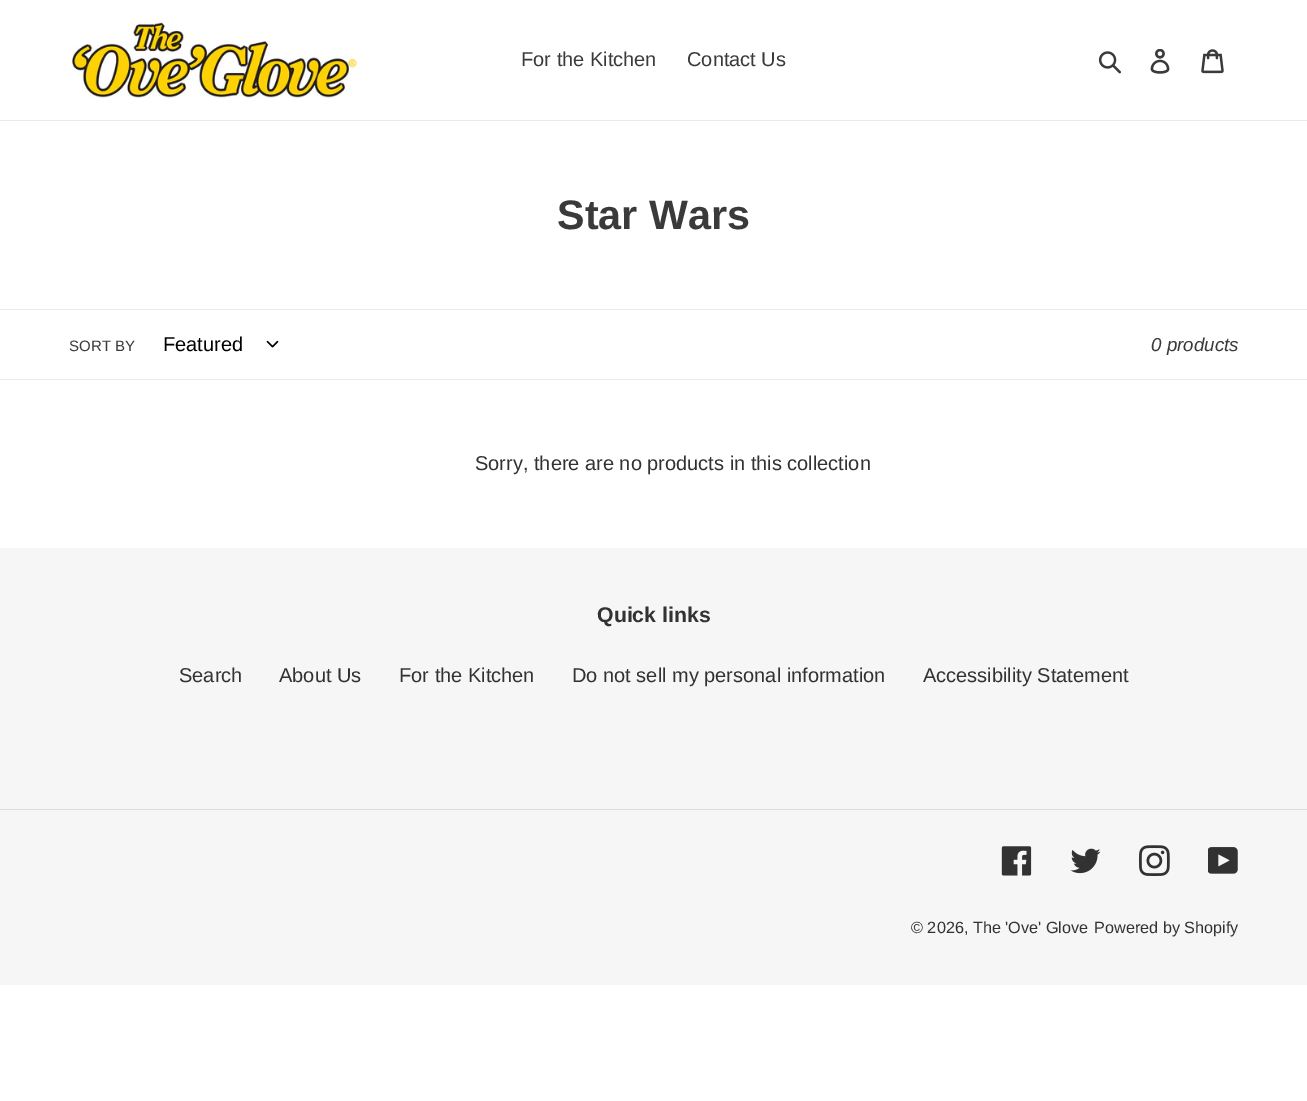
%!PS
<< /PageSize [1307 1101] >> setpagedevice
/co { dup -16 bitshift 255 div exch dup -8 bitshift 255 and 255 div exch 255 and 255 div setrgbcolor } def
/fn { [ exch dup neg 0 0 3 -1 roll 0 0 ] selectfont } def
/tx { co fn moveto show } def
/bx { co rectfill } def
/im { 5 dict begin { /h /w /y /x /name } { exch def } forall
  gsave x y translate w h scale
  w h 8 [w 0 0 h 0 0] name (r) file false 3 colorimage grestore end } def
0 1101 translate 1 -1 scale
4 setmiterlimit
0 0 1307 1101 16#FFFFFF bx
0 120 1307 1 16#EBEBEB bx
(media/1.raw) 72 19 289 80 im
(media/2.raw) 1098 51 23 23 im
(media/3.raw) 1150 49 20 25 im
(media/4.raw) 1201 49 23 25 im
0 309 1307 1 16#EBEBEB bx
0 379 1307 1 16#EBEBEB bx
(media/5.raw) 266 340 13 8 im
0 548 1307 437 16#F6F6F6 bx
0 809 1307 1 16#DDDDDD bx
(media/6.raw) 1001 846 31 30 im
(media/7.raw) 1070 848 31 26 im
(media/8.raw) 1139 845 31 31 im
(media/9.raw) 1208 847 30 27 im
(For the Kitchen) 521 66 /LiberationSans-Regular 20 16#3A3A3A tx
(Contact Us) 687 66 /LiberationSans-Regular 20 16#3A3A3A tx
(Star Wars) 557 229 /LiberationSans-Bold 41.25 16#3A3A3A tx
(SORT BY) 69 351 /LiberationSans-Regular 15 16#3A3A3A tx
(Featured) 163 351 /LiberationSans-Regular 20 16#000000 tx
(0 products) 1151 351 /LiberationSans-Italic 18.75 16#3A3A3A tx
(Sorry, there are no products in this collection) 475 470 /LiberationSans-Regular 20 16#333232 tx
(Quick links) 597 622 /LiberationSans-Bold 21.25 16#333232 tx
(Search) 179 682 /LiberationSans-Regular 20 16#333232 tx
(About Us) 279 682 /LiberationSans-Regular 20 16#333232 tx
(For the Kitchen) 399 682 /LiberationSans-Regular 20 16#333232 tx
(Do not sell my personal information) 572 682 /LiberationSans-Regular 20 16#333232 tx
(Accessibility Statement) 923 682 /LiberationSans-Regular 20 16#333232 tx
(© 2026, The 'Ove' Glove) 911 933 /LiberationSans-Regular 16.25 16#333232 tx
(Powered by Shopify) 1094 933 /LiberationSans-Regular 16.25 16#333232 tx
showpage
